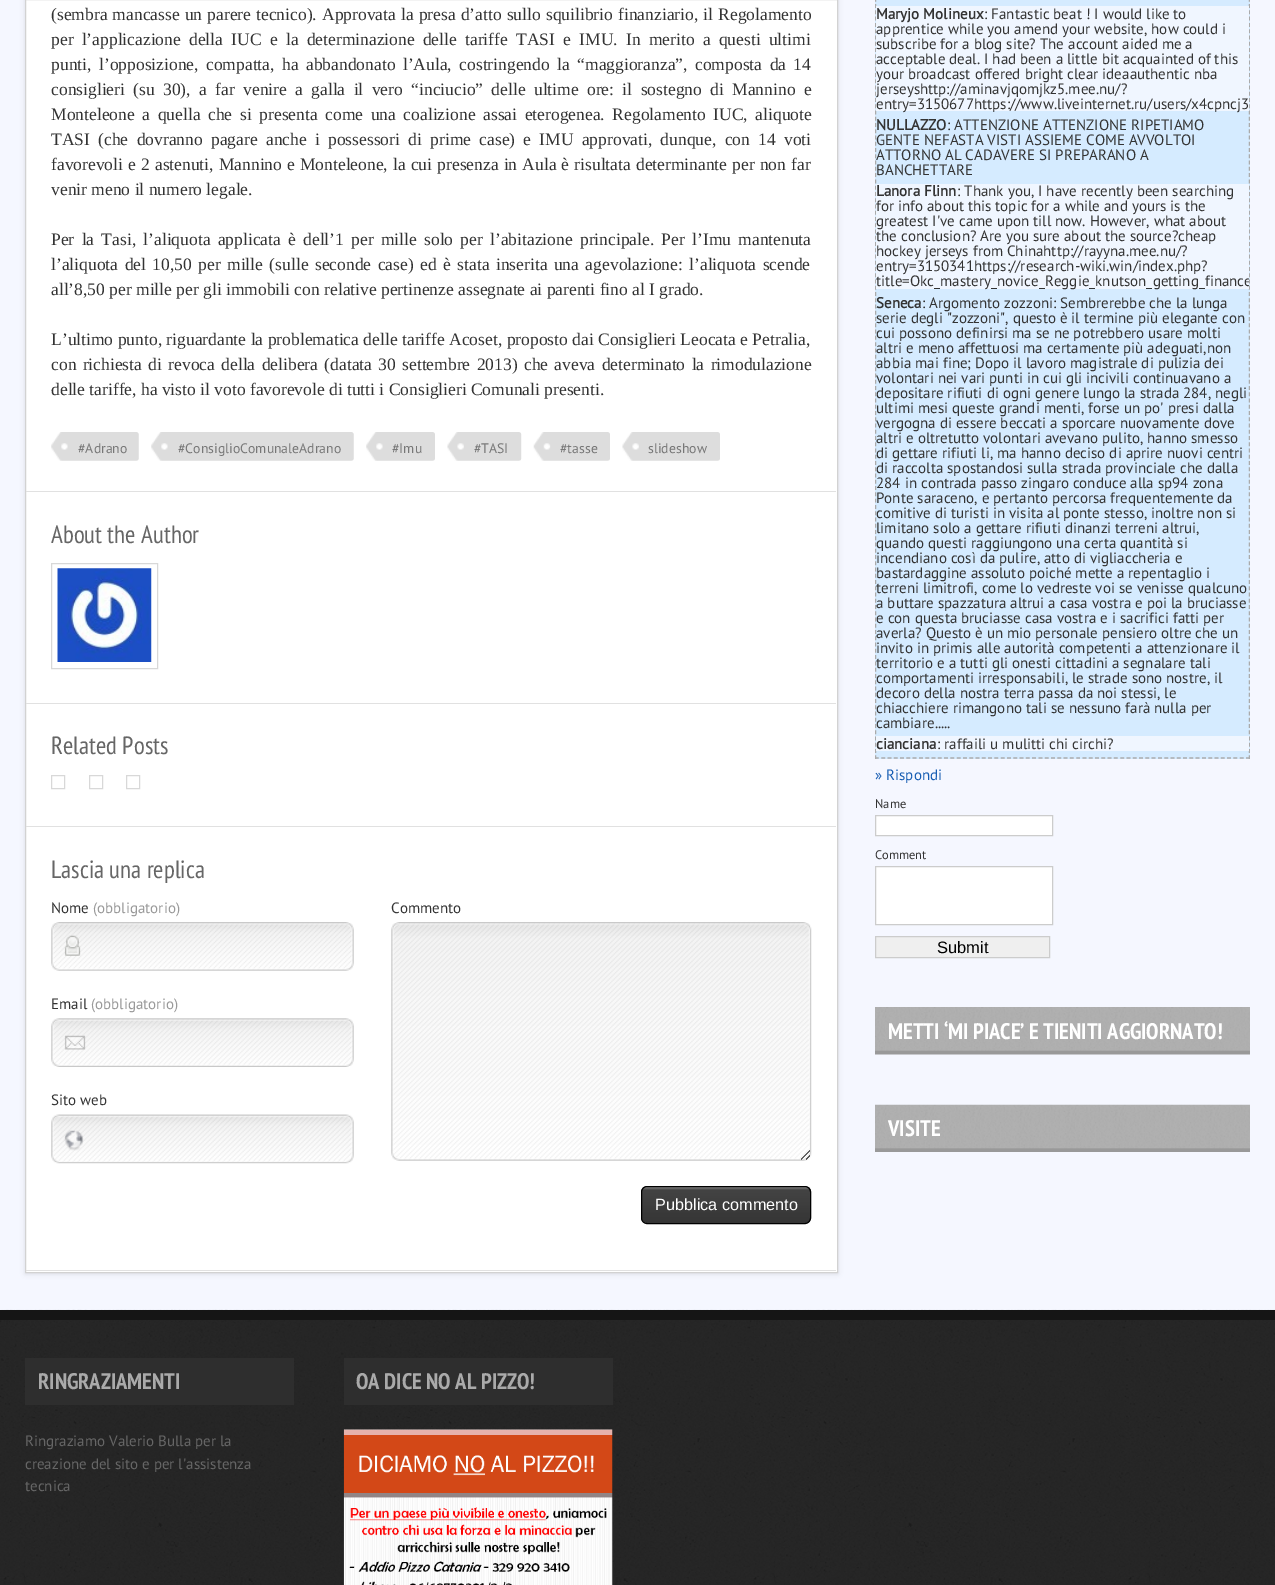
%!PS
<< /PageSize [1275 1585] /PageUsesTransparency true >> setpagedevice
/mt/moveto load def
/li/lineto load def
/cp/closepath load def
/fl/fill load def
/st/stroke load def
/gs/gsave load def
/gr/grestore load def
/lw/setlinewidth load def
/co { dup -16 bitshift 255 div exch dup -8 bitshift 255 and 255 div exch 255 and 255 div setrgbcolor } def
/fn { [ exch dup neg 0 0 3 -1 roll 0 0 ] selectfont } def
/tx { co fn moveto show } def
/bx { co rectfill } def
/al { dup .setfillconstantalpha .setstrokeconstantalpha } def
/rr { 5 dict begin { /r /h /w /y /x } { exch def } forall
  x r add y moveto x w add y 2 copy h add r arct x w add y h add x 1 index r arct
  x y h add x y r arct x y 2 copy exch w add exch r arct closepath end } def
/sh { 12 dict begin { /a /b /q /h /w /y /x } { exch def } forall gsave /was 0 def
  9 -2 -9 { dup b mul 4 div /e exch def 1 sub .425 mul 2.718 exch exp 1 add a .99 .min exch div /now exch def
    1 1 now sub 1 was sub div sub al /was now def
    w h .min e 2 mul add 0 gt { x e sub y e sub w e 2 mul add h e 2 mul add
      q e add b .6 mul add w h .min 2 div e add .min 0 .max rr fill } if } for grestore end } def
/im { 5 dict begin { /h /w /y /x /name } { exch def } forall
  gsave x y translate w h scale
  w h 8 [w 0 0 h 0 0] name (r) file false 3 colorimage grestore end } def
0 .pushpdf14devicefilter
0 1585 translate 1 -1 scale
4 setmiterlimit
0 0 1275 1585 16#F5F7FF bx
16#000000 co
25 -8 813 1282 0 2.5 .1 sh
16#FFFFFF co
25.5 -.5 mt 837.5 -.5 li 837.5 1272.5 li 25.5 1272.5 li cp gs fl gr
16#D2D2D2 co
st
(media/1.raw) 51 432 88 29 im
(media/2.raw) 151 432 203 29 im
(media/3.raw) 366 432 69 29 im
(media/4.raw) 447 432 75 29 im
(media/5.raw) 533 432 77 29 im
(media/6.raw) 622 432 98 29 im
26 491 810 1 16#E1E1E1 bx
26 703 810 1 16#E1E1E1 bx
16#D8D8D8 co
51.5 563.5 106 105 rectstroke
(media/7.raw) 57 568 95 94 im
26 826 810 1 16#E1E1E1 bx
16#D8D8D8 co
51.5 775.5 13 13 rectstroke
89.5 775.5 13 13 rectstroke
126.5 775.5 13 13 rectstroke
26 1270 810 1 16#E1E1E1 bx
(media/8.raw) 51 922 303 49 im
(media/9.raw) 51 1018 303 49 im
(media/10.raw) 51 1114 303 50 im
(media/11.raw) 391 922 421 239 im
(media/12.raw) 641 1187 171 37 im
16#000000 co
641.5 1186.5 169 37 5.5 rr st
875 0 375 759 16#D5EBFF bx
gs
875 0 375 983 rectclip
16#AAAAAA co
1.2 lw
[3.75 2.51] 0 setdash
1249.5 -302.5 mt 1249.5 759 li st
gr
16#AAAAAA co
1.2 lw
[3.75 2.54] 0 setdash
875 758 mt 1250 758 li st
gs
875 0 375 983 rectclip
[3.75 2.51] 0 setdash
875.5 -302.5 mt 875.5 759 li st
gr
876 6 373 105 16#F0F6FF bx
876 184 373 105 16#F0F6FF bx
876 736 373 15 16#F0F6FF bx
16#FFFFFF co
875.5 815.5 mt 1052.5 815.5 li 1052.5 835.5 li 875.5 835.5 li cp gs fl gr
16#CCCCCC co
1 lw
[] 0 setdash
st
16#FFFFFF co
875.5 866.5 mt 1052.5 866.5 li 1052.5 924.5 li 875.5 924.5 li cp gs fl gr
16#CCCCCC co
st
16#EFEFEF co
875.5 936.5 mt 1049.5 936.5 li 1049.5 957.5 li 875.5 957.5 li cp gs fl gr
16#CCCCCC co
st
(media/13.raw) 875 1007 375 48 im
(media/14.raw) 875 1104 375 48 im
0 1320 1275 265 16#272727 bx
(media/15.raw) 0 1309 1275 276 im
0 1310 1275 10 16#151515 bx
25 1358 269 47 16#2E2E2E bx
344 1358 269 47 16#2E2E2E bx
(media/16.raw) 343 1429 270 156 im
/LiberationSerif-Regular 17.5 fn
16#333333 co
51 20 mt .75 0 32 (\(sembra mancasse un parere tecnico\). Approvata la presa d’atto sullo squilibrio finanziario, il Regolamento) widthshow
51 45 mt 3.9 0 32 (per l’applicazione della IUC e la determinazione delle tariffe TASI e IMU. In merito a questi ultimi) widthshow
51 70 mt 3.1 0 32 (punti, l’opposizione, compatta, ha abbandonato l’Aula, costringendo la “maggioranza”, composta da 14) widthshow
51 95 mt 4 0 32 (consiglieri \(su 30\), a far venire a galla il vero “inciucio” delle ultime ore: il sostegno di Mannino e) widthshow
51 120 mt 3.25 0 32 (Monteleone a quella che si presenta come una coalizione assai eterogenea. Regolamento IUC, aliquote) widthshow
51 145 mt 3.9 0 32 (TASI \(che dovranno pagare anche i possessori di prime case\) e IMU approvati, dunque, con 14 voti) widthshow
51 170 mt .75 0 32 (favorevoli e 2 astenuti, Mannino e Monteleone, la cui presenza in Aula è risultata determinante per non far) widthshow
(venir meno il numero legale.) 51 195 /LiberationSerif-Regular 17.5 16#333333 tx
51 245 mt 2.9 0 32 (Per la Tasi, l’aliquota applicata è dell’1 per mille solo per l’abitazione principale. Per l’Imu mantenuta) widthshow
51 270 mt 2.1 0 32 (l’aliquota del 10,50 per mille \(sulle seconde case\) ed è stata inserita una agevolazione: l’aliquota scende) widthshow
(all’8,50 per mille per gli immobili con relative pertinenze assegnate ai parenti fino al I grado.) 51 295 /LiberationSerif-Regular 17.5 16#333333 tx
51 345 mt .1 0 32 (L’ultimo punto, riguardante la problematica delle tariffe Acoset, proposto dai Consiglieri Leocata e Petralia,) widthshow
51 370 mt 2 0 32 (con richiesta di revoca della delibera \(datata 30 settembre 2013\) che aveva determinato la rimodulazione) widthshow
(delle tariffe, ha visto il voto favorevole di tutti i Consiglieri Comunali presenti.) 51 395 /LiberationSerif-Regular 17.5 16#333333 tx
(#Adrano) 78 453 /PTSans-Regular 13.75 16#777777 tx
(#ConsiglioComunaleAdrano) 178 453 /PTSans-Regular 13.75 16#777777 tx
(#Imu) 392 453 /PTSans-Regular 13.75 16#777777 tx
(#TASI) 474 453 /PTSans-Regular 13.75 16#777777 tx
(#tasse) 560 453 /PTSans-Regular 13.75 16#777777 tx
(slideshow) 648 453 /PTSans-Regular 13.75 16#777777 tx
(About the Author) 51 543 /PTSansNarrow-Regular 25 16#666666 tx
(Related Posts) 51 754 /PTSansNarrow-Regular 25 16#666666 tx
(Lascia una replica) 51 878 /PTSansNarrow-Regular 25 16#666666 tx
(Nome) 51 913 /PTSans-Regular 15 16#333333 tx
(\(obbligatorio\)) 93 913 /PTSans-Regular 15 16#999999 tx
(Email) 51 1009 /PTSans-Regular 15 16#333333 tx
(\(obbligatorio\)) 91 1009 /PTSans-Regular 15 16#999999 tx
(Sito web) 51 1105 /PTSans-Regular 15 16#333333 tx
(Commento) 391 913 /PTSans-Regular 15 16#333333 tx
(Pubblica commento) 655 1210 /LiberationSans-Regular 16.25 16#FFFFFF tx
(Maryjo Molineux) 876 19 /PTSans-Bold 15 16#333333 tx
(: Fantastic beat ! I would like to) 984 19 /PTSans-Regular 15 16#333333 tx
(apprentice while you amend your website, how could i) 876 34 /PTSans-Regular 15 16#333333 tx
(subscribe for a blog site? The account aided me a) 876 49 /PTSans-Regular 15 16#333333 tx
(acceptable deal. I had been a little bit acquainted of this) 876 64 /PTSans-Regular 15 16#333333 tx
(your broadcast offered bright clear ideaauthentic nba) 876 79 /PTSans-Regular 15 16#333333 tx
(jerseyshttp://aminavjqomjkz5.mee.nu/?) 876 94 /PTSans-Regular 15 16#333333 tx
(entry=3150677https://www.liveinternet.ru/users/x4cpncj3) 876 109 /PTSans-Regular 15 16#333333 tx
(NULLAZZO) 876 130 /PTSans-Bold 15 16#333333 tx
(: ATTENZIONE ATTENZIONE RIPETIAMO) 947 130 /PTSans-Regular 15 16#333333 tx
(GENTE NEFASTA VISTI ASSIEME COME AVVOLTOI) 876 145 /PTSans-Regular 15 16#333333 tx
(ATTORNO AL CADAVERE SI PREPARANO A) 876 160 /PTSans-Regular 15 16#333333 tx
(BANCHETTARE) 876 175 /PTSans-Regular 15 16#333333 tx
(Lanora Flinn) 876 196 /PTSans-Bold 15 16#333333 tx
(: Thank you, I have recently been searching) 957 196 /PTSans-Regular 15 16#333333 tx
(for info about this topic for a while and yours is the) 876 211 /PTSans-Regular 15 16#333333 tx
(greatest I've came upon till now. However, what about) 876 226 /PTSans-Regular 15 16#333333 tx
(the conclusion? Are you sure about the source?cheap) 876 241 /PTSans-Regular 15 16#333333 tx
(hockey jerseys from Chinahttp://rayyna.mee.nu/?) 876 256 /PTSans-Regular 15 16#333333 tx
(entry=3150341https://research-wiki.win/index.php?) 876 271 /PTSans-Regular 15 16#333333 tx
gs
876 0 373 758 rectclip
(title=Okc_mastery_novice_Reggie_knutson_getting_finance) 876 286 /PTSans-Regular 15 16#333333 tx
gr
(Seneca) 876 308 /PTSans-Bold 15 16#333333 tx
(: Argomento zozzoni: Sembrerebbe che la lunga) 922 308 /PTSans-Regular 15 16#333333 tx
(serie degli "zozzoni", questo è il termine più elegante con) 876 323 /PTSans-Regular 15 16#333333 tx
(cui possono definirsi ma se ne potrebbero usare molti) 876 338 /PTSans-Regular 15 16#333333 tx
(altri e meno affettuosi ma certamente più adeguati,non) 876 353 /PTSans-Regular 15 16#333333 tx
(abbia mai fine; Dopo il lavoro magistrale di pulizia dei) 876 368 /PTSans-Regular 15 16#333333 tx
(volontari nei vari punti in cui gli incivili continuavano a) 876 383 /PTSans-Regular 15 16#333333 tx
(depositare rifiuti di ogni genere lungo la strada 284, negli) 876 398 /PTSans-Regular 15 16#333333 tx
(ultimi mesi queste grandi menti, forse un po' presi dalla) 876 413 /PTSans-Regular 15 16#333333 tx
(vergogna di essere beccati a sporcare nuovamente dove) 876 428 /PTSans-Regular 15 16#333333 tx
(altri e oltretutto volontari avevano pulito, hanno smesso) 876 443 /PTSans-Regular 15 16#333333 tx
(di gettare rifiuti li, ma hanno deciso di aprire nuovi centri) 876 458 /PTSans-Regular 15 16#333333 tx
(di raccolta spostandosi sulla strada provinciale che dalla) 876 473 /PTSans-Regular 15 16#333333 tx
(284 in contrada passo zingaro conduce alla sp94 zona) 876 488 /PTSans-Regular 15 16#333333 tx
(Ponte saraceno, e pertanto percorsa frequentemente da) 876 503 /PTSans-Regular 15 16#333333 tx
(comitive di turisti in visita al ponte stesso, inoltre non si) 876 518 /PTSans-Regular 15 16#333333 tx
(limitano solo a gettare rifiuti dinanzi terreni altrui,) 876 533 /PTSans-Regular 15 16#333333 tx
(quando questi raggiungono una certa quantità si) 876 548 /PTSans-Regular 15 16#333333 tx
(incendiano così da pulire, atto di vigliaccheria e) 876 563 /PTSans-Regular 15 16#333333 tx
(bastardaggine assoluto poiché mette a repentaglio i) 876 578 /PTSans-Regular 15 16#333333 tx
(terreni limitrofi, come lo vedreste voi se venisse qualcuno) 876 593 /PTSans-Regular 15 16#333333 tx
(a buttare spazzatura altrui a casa vostra e poi la bruciasse) 876 608 /PTSans-Regular 15 16#333333 tx
(e con questa bruciasse casa vostra e i sacrifici fatti per) 876 623 /PTSans-Regular 15 16#333333 tx
(averla? Questo è un mio personale pensiero oltre che un) 876 638 /PTSans-Regular 15 16#333333 tx
(invito in primis alle autorità competenti a attenzionare il) 876 653 /PTSans-Regular 15 16#333333 tx
(territorio e a tutti gli onesti cittadini a segnalare tali) 876 668 /PTSans-Regular 15 16#333333 tx
(comportamenti irresponsabili, le strade sono nostre, il) 876 683 /PTSans-Regular 15 16#333333 tx
(decoro della nostra terra passa da noi stessi, le) 876 698 /PTSans-Regular 15 16#333333 tx
(chiacchiere rimangono tali se nessuno farà nulla per) 876 713 /PTSans-Regular 15 16#333333 tx
(cambiare.....) 876 728 /PTSans-Regular 15 16#333333 tx
(cianciana) 876 749 /PTSans-Bold 15 16#333333 tx
(: raffaili u mulitti chi circhi?) 937 749 /PTSans-Regular 15 16#333333 tx
(» Rispondi) 875 780 /PTSans-Regular 15 16#175DB3 tx
(Name) 875 808 /PTSans-Regular 12.5 16#333333 tx
(Comment) 875 859 /PTSans-Regular 12.5 16#333333 tx
(Submit) 937 953 /LiberationSans-Regular 16.5 16#000000 tx
(METTI ‘MI PIACE’ E TIENITI AGGIORNATO!) 888 1039 /PTSansNarrow-Bold 22.5 16#FFFFFF tx
(VISITE) 888 1136 /PTSansNarrow-Bold 22.5 16#FFFFFF tx
(RINGRAZIAMENTI) 38 1389 /PTSansNarrow-Bold 22.5 16#AAAAAA tx
(Ringraziamo Valerio Bulla per la) 25 1446 /PTSans-Regular 15 16#666666 tx
(creazione del sito e per l'assistenza) 25 1469 /PTSans-Regular 15 16#666666 tx
(tecnica) 25 1491 /PTSans-Regular 15 16#666666 tx
(OA DICE NO AL PIZZO!) 356 1389 /PTSansNarrow-Bold 22.5 16#AAAAAA tx
.poppdf14devicefilter showpage
